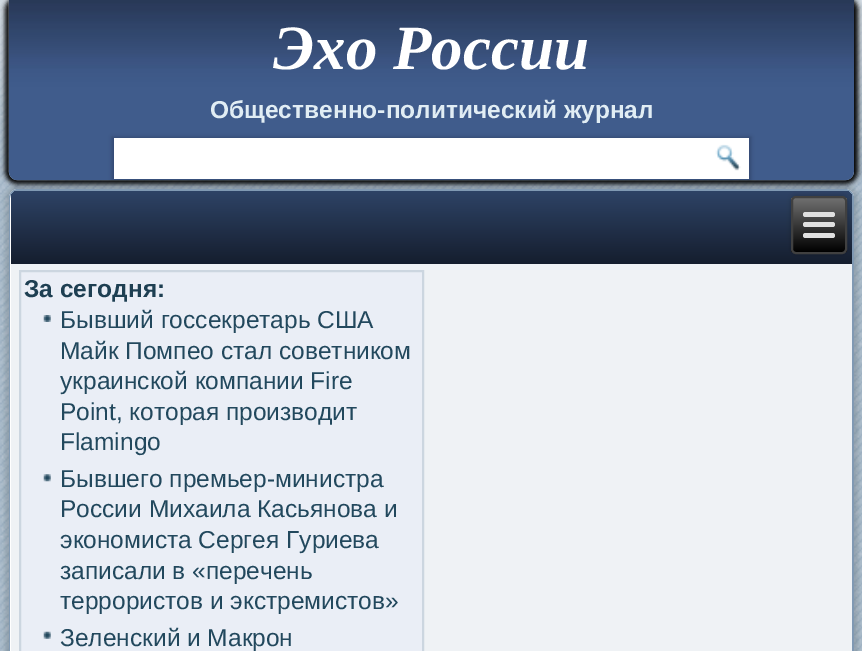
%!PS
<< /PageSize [862 651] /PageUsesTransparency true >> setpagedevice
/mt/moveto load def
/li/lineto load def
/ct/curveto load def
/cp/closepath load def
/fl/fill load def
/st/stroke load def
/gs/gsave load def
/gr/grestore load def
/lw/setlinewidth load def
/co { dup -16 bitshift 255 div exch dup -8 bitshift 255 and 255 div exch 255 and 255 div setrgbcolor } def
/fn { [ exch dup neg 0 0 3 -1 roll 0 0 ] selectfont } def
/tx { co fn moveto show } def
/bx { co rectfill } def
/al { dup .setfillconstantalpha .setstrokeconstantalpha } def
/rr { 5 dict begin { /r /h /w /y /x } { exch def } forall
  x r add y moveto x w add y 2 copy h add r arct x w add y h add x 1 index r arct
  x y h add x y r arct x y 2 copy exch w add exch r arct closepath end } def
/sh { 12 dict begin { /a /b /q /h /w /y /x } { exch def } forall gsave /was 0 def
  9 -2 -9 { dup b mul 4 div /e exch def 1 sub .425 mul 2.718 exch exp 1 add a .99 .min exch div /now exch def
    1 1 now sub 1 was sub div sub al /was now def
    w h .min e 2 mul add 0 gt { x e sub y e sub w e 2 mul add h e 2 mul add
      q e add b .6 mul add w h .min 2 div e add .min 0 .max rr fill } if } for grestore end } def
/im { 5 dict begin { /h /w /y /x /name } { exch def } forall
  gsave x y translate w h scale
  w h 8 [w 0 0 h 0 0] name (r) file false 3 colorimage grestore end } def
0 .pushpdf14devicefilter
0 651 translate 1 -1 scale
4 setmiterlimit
0 0 862 651 16#B2C2D1 bx
(media/1.raw) 0 0 862 651 im
16#000000 co
5 -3 853 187 12 2.5 1 sh
(media/2.raw) 8 0 846 181 im
112 137 639 43 0 2 .2 sh
5 186 853 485 12 2.5 .15 sh
114 138 635 41 16#FFFFFF bx
(media/3.raw) 715 144 26 27 im
18 189 mt 845 189 li 850 189 854 193 854 198 ct 854 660 li 9 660 li 9 198 li 9 193 13 189 18 189 ct cp fl
16#8099B3 co
18 189 mt 845 189 li 850 189 854 193 854 198 ct 854 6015 li 9 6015 li 9 198 li 9 193 13 189 18 189 ct cp 18 191 mt 845 191 li 849 191 852 194 852 198 ct 852 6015 li 10 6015 li 10 198 li 10 194 14 191 18 191 ct cp eofill
gs 18 191 mt 845 191 li 849 191 852 194 852 198 ct 852 264 li 11 264 li 11 198 li 11 194 14 191 18 191 ct cp clip newpath
<< /ShadingType 2 /ColorSpace /DeviceRGB /Coords [431 191 431 264] /Extend [true true] /Function << /FunctionType 2 /Domain [0 1] /C0 [.18 .263 .4] /C1 [.082 .118 .18] /N 1 >> >> shfill gr
16#000000 co
791 196 56 58 5 2.5 .2 sh
gs
791 196 56 58 5 rr clip newpath
gs 791 198 mt 847 198 li 847 252 li 791 252 li cp clip newpath
<< /ShadingType 2 /ColorSpace /DeviceRGB /Coords [819 198 819 252] /Extend [true true] /Function << /FunctionType 2 /Domain [0 1] /C0 [.439 .439 .439] /C1 [0 0 0] /N 1 >> >> shfill gr
gr
16#404040 co
2 lw
792 197 54 56 4 rr st
16#E0E0E0 co
803 212 32 5 2.5 rr fl
803 222 32 5 2.5 rr fl
803 233 32 5 2.5 rr fl
11 264 841 387 16#EFF2F5 bx
16#EAEEF6 co
20 271 mt 423 271 li 423 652 li 20 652 li cp gs fl gr
16#CCD6E0 co
st
(media/4.raw) 43 315 8 7 im
(media/5.raw) 43 474 8 8 im
(media/6.raw) 43 631 8 8 im
(Эхо России) 273 69 /LiberationSerif-BoldItalic 63 16#FFFFFF tx
(Общественно-политический журнал) 210 118 /LiberationSans-Bold 24.5 16#E1EDF4 tx
(За сегодня:) 24 297 /LiberationSans-Bold 24.5 16#1E3F52 tx
(Бывший госсекретарь США) 60 328 /LiberationSans-Regular 24.5 16#22485D tx
(Майк Помпео стал советником) 60 359 /LiberationSans-Regular 24.5 16#22485D tx
(украинской компании Fire) 60 389 /LiberationSans-Regular 24.5 16#22485D tx
(Point, которая производит) 60 420 /LiberationSans-Regular 24.5 16#22485D tx
(Flamingo) 60 450 /LiberationSans-Regular 24.5 16#22485D tx
(Бывшего премьер-министра) 60 487 /LiberationSans-Regular 24.5 16#22485D tx
(России Михаила Касьянова и) 60 517 /LiberationSans-Regular 24.5 16#22485D tx
(экономиста Сергея Гуриева) 60 548 /LiberationSans-Regular 24.5 16#22485D tx
(записали в «перечень) 60 579 /LiberationSans-Regular 24.5 16#22485D tx
(террористов и экстремистов») 60 609 /LiberationSans-Regular 24.5 16#22485D tx
(Зеленский и Макрон) 60 646 /LiberationSans-Regular 24.5 16#22485D tx
.poppdf14devicefilter showpage
